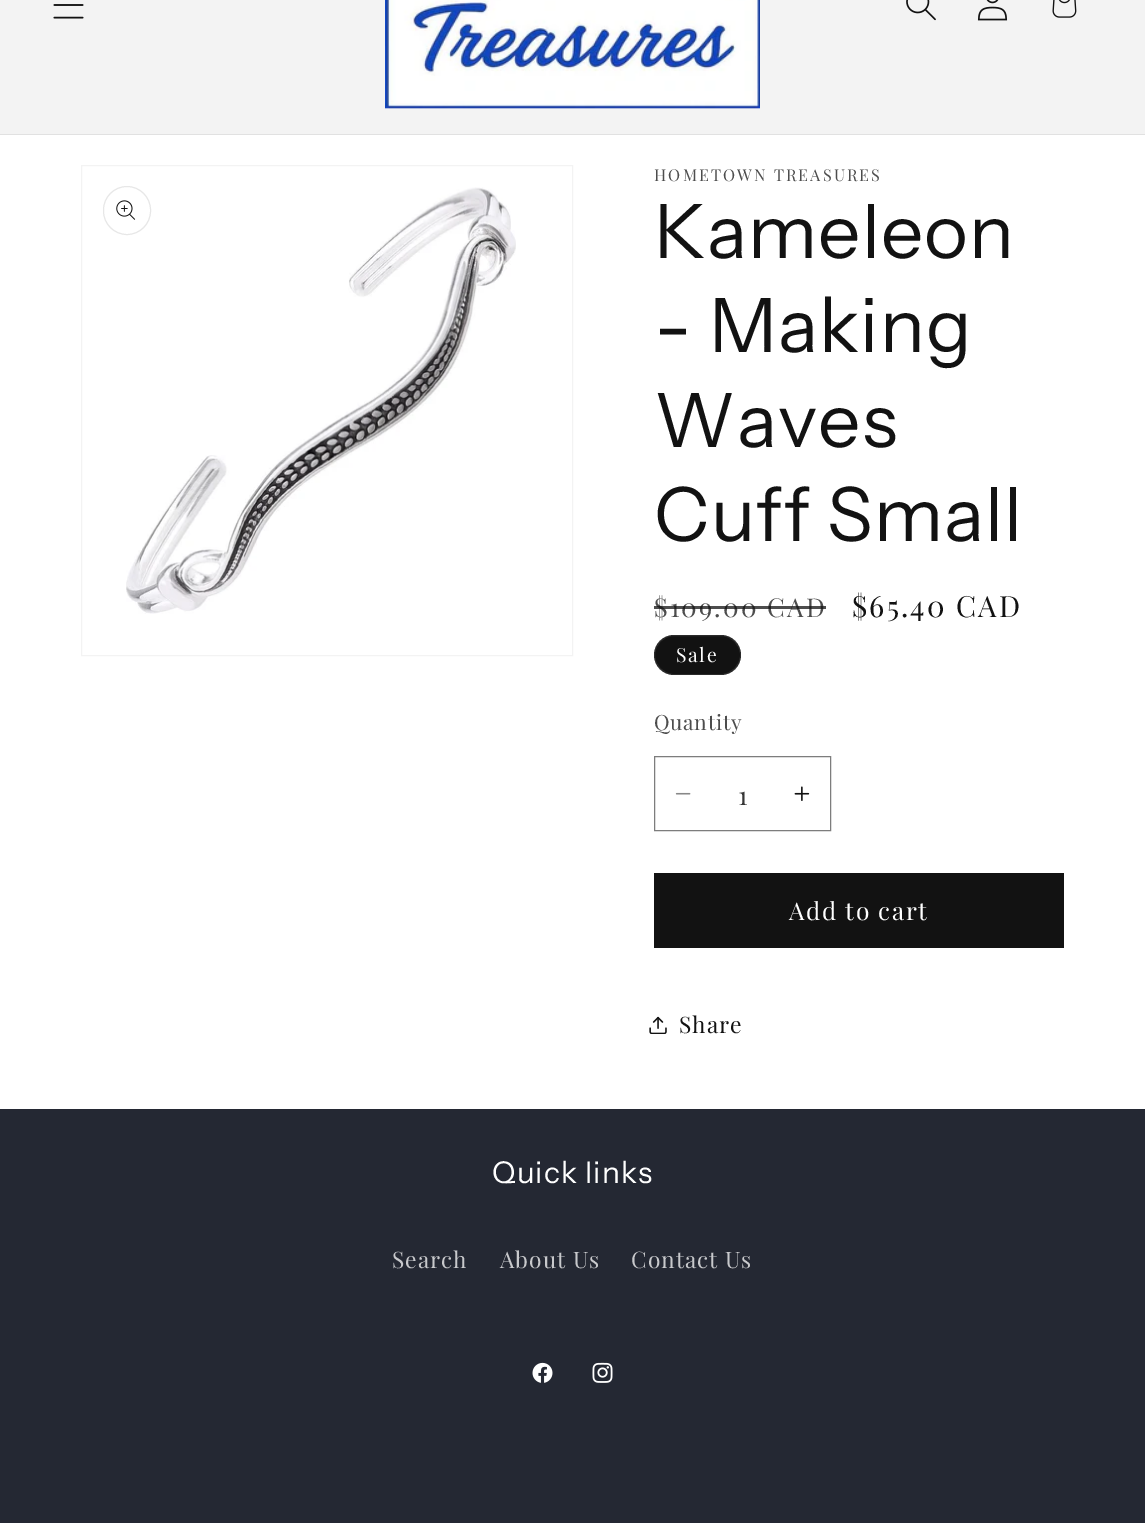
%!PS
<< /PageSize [1145 1523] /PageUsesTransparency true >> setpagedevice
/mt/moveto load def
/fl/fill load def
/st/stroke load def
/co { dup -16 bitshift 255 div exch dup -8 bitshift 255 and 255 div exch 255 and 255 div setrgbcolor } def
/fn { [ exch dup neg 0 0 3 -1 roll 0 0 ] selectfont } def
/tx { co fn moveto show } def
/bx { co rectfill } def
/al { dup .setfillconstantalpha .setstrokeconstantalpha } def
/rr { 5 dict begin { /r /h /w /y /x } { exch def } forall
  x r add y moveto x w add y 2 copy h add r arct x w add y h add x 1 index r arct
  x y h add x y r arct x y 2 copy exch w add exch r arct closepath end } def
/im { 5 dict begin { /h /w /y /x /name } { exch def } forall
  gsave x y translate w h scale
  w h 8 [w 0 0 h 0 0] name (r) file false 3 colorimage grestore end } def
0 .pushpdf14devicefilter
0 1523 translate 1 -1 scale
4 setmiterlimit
0 0 1145 1523 16#FFFFFF bx
0 0 1145 134 16#F3F3F3 bx
0 134 1145 1 16#E1E1E1 bx
(media/1.raw) 53 4 31 15 im
(media/2.raw) 385 0 375 109 im
(media/3.raw) 906 0 30 21 im
(media/4.raw) 977 0 31 21 im
(media/5.raw) 1052 0 25 18 im
16#F3F3F3 co
81.5 165.5 491 490 rectstroke
(media/7.raw) 126 187 390 427 im
16#E7E7E7 co
103.5 186.5 47 48 23.5 rr st
(media/6.raw) 116 200 20 20 im
16#121212 co
654 635 87 40 20 rr fl
0.1 al
16#FFFFFF co
654.5 635.5 86 39 19.5 rr st
1 al
(media/8.raw) 675 792 16 3 im
(media/9.raw) 794 786 16 15 im
16#7D7D7D co
654.5 756.5 176 74 rectstroke
654 873 410 75 16#121212 bx
(media/10.raw) 649 1016 18 18 im
0 1109 1145 414 16#242833 bx
(media/11.raw) 532 1362 21 21 im
(media/12.raw) 592 1362 21 21 im
/PlayfairDisplay-Regular 16.25 fn
16#4D4D4D co
654 181 mt 2.1 0 (HOMETOWN TREASURES) ashow
/InstrumentSans-Regular 75 fn
16#121212 co
654 258 mt 1.1 0 (Kameleon) ashow
654 352 mt 1.1 0 (- Making) ashow
654 447 mt 1.1 0 (Waves) ashow
654 541 mt 1.1 0 (Cuff Small) ashow
/PlayfairDisplay-Regular 26 fn
16#4D4D4D co
654 617 mt 2.1 0 ($109.00 CAD) ashow
0.75 al
654 606 172 3 16#121212 bx
/PlayfairDisplay-Regular 29.25 fn
1 al
852 617 mt 2.1 0 ($65.40 CAD) ashow
/PlayfairDisplay-Regular 19.5 fn
16#FFFFFF co
676 662 mt 1.6 0 (Sale) ashow
/PlayfairDisplay-Regular 21 fn
16#4D4D4D co
654 730 mt .75 0 (Quantity) ashow
(1) 738 805 /PlayfairDisplay-Regular 26 16#363636 tx
/PlayfairDisplay-Regular 24.5 fn
16#FFFFFF co
789 920 mt 1.6 0 (Add to cart) ashow
/PlayfairDisplay-Regular 22.75 fn
16#121212 co
679 1033 mt 1 0 (Share) ashow
/InstrumentSans-Regular 30 fn
16#FFFFFF co
492 1183 mt 1.1 0 (Quick links) ashow
/PlayfairDisplay-Regular 22.75 fn
16#C8C9CC co
392 1268 mt 1 0 (Search) ashow
500 1268 mt 1 0 (About Us) ashow
631 1268 mt 1 0 (Contact Us) ashow
.poppdf14devicefilter showpage
